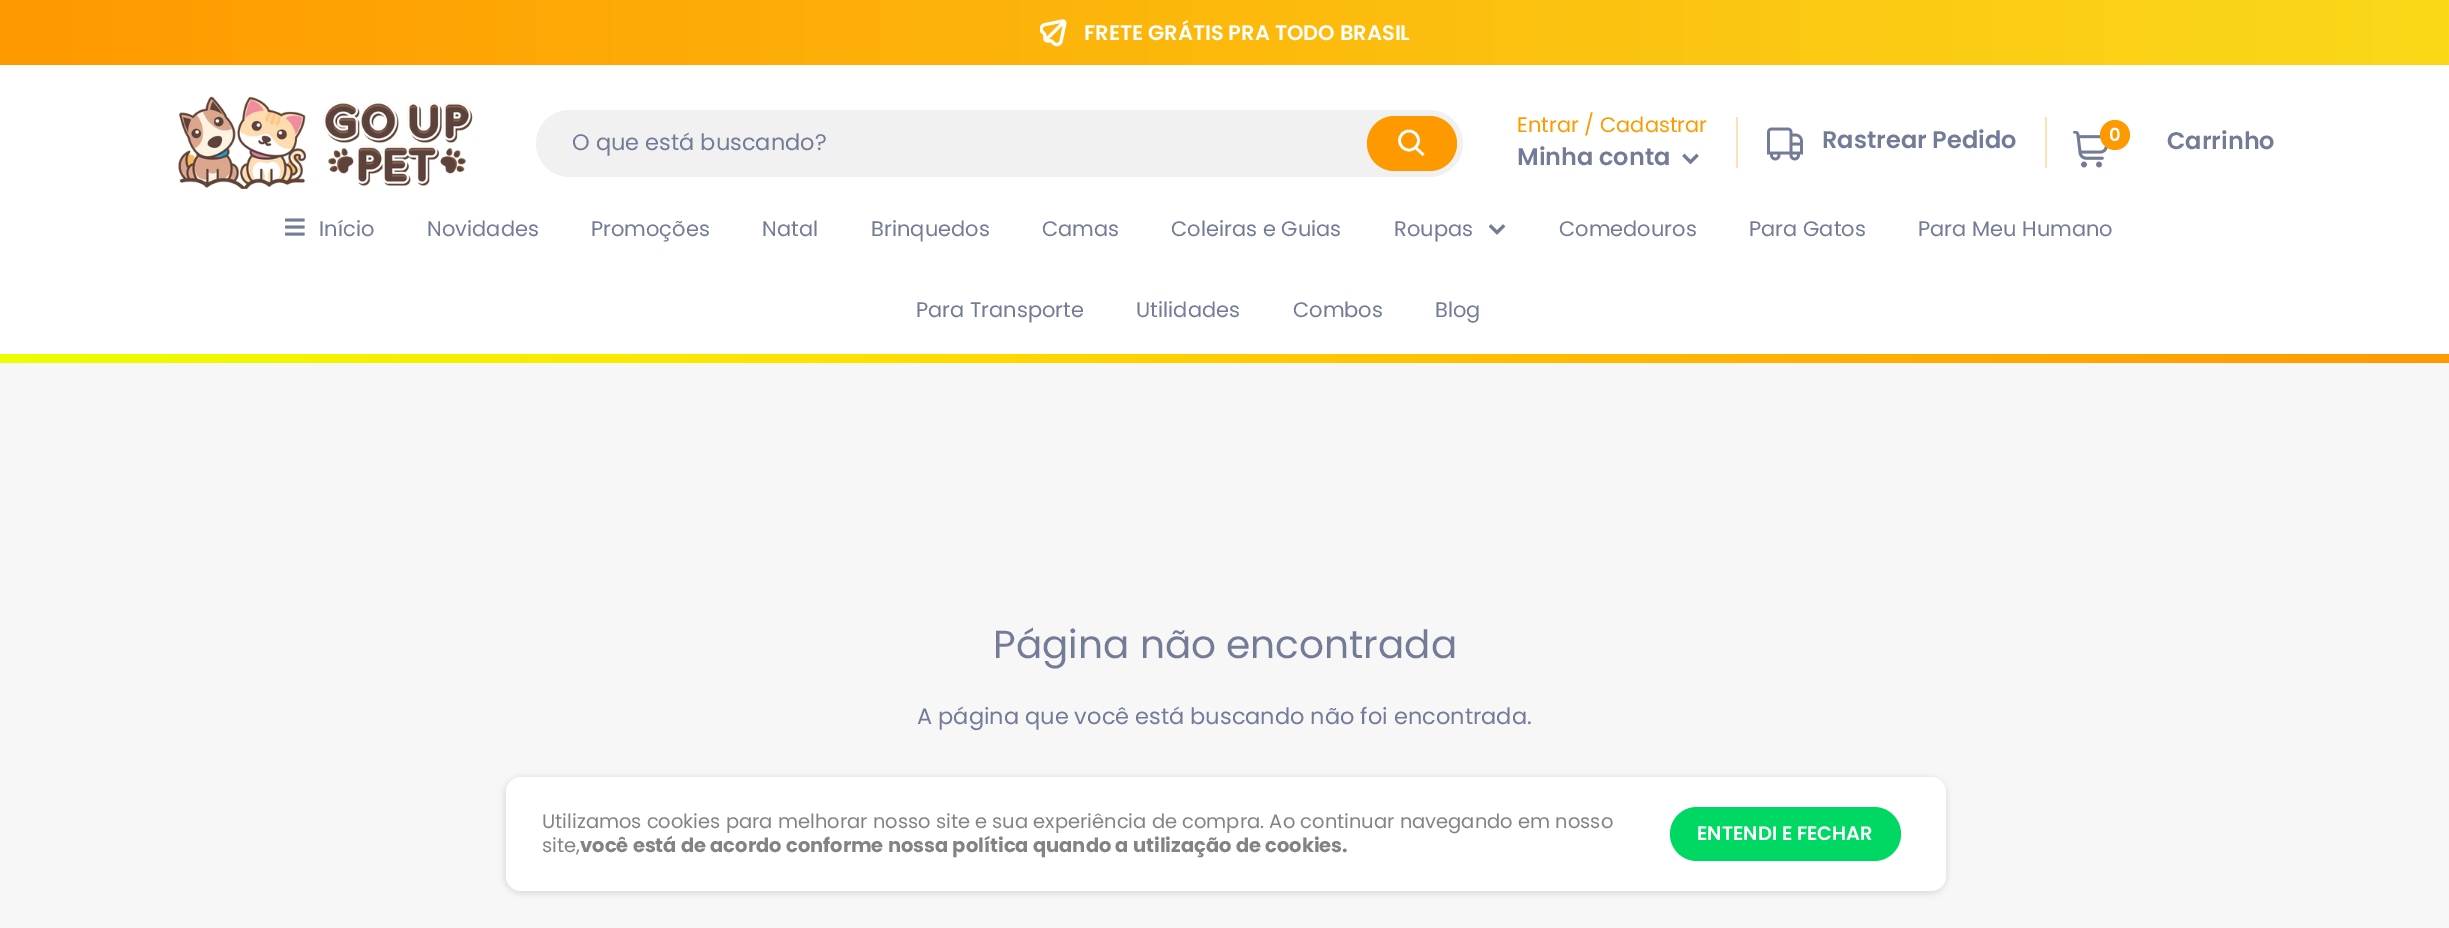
%!PS
<< /PageSize [2449 928] /PageUsesTransparency true >> setpagedevice
/mt/moveto load def
/li/lineto load def
/cp/closepath load def
/fl/fill load def
/st/stroke load def
/gs/gsave load def
/gr/grestore load def
/lw/setlinewidth load def
/co { dup -16 bitshift 255 div exch dup -8 bitshift 255 and 255 div exch 255 and 255 div setrgbcolor } def
/fn { [ exch dup neg 0 0 3 -1 roll 0 0 ] selectfont } def
/tx { co fn moveto show } def
/bx { co rectfill } def
/al { dup .setfillconstantalpha .setstrokeconstantalpha } def
/ci { newpath 0 360 arc closepath } def
/rr { 5 dict begin { /r /h /w /y /x } { exch def } forall
  x r add y moveto x w add y 2 copy h add r arct x w add y h add x 1 index r arct
  x y h add x y r arct x y 2 copy exch w add exch r arct closepath end } def
/sh { 12 dict begin { /a /b /q /h /w /y /x } { exch def } forall gsave /was 0 def
  9 -2 -9 { dup b mul 4 div /e exch def 1 sub .425 mul 2.718 exch exp 1 add a .99 .min exch div /now exch def
    1 1 now sub 1 was sub div sub al /was now def
    w h .min e 2 mul add 0 gt { x e sub y e sub w e 2 mul add h e 2 mul add
      q e add b .6 mul add w h .min 2 div e add .min 0 .max rr fill } if } for grestore end } def
/im { 5 dict begin { /h /w /y /x /name } { exch def } forall
  gsave x y translate w h scale
  w h 8 [w 0 0 h 0 0] name (r) file false 3 colorimage grestore end } def
0 .pushpdf14devicefilter
0 928 translate 1 -1 scale
4 setmiterlimit
0 0 2449 928 16#F7F7F7 bx
gs 0 0 mt 2449 0 li 2449 65 li 0 65 li cp clip newpath
<< /ShadingType 2 /ColorSpace /DeviceRGB /Coords [0 32 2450 32] /Extend [true true] /Function << /FunctionType 2 /Domain [0 1] /C0 [1 .6 0] /C1 [.98 .851 .098] /N 1 >> >> shfill gr
(media/1.raw) 1040 19 27 28 im
0 65 2449 289 16#FFFFFF bx
(media/2.raw) 178 96 295 94 im
16#F1F1F1 co
536 110 927 67 33.5 rr fl
16#FF9900 co
1367 116 90 55 27.5 rr fl
16#FFFFFF co
2.6 lw
2 setlinecap
1422.5 154 mt 1416 148 li st
0 setlinecap
1409 140.5 9.5 ci st
1736 117 2 51 16#FFE0B3 bx
16#737B97 co
3 lw
2 setlinecap
1696.5 156 mt 1690.5 162 li 1684.5 156 li st
(media/3.raw) 1767 127 36 34 im
2045 117 2 51 16#FFE0B3 bx
(media/4.raw) 2073 131 35 37 im
16#FF9900 co
2115 135 15 ci fl
(media/5.raw) 285 218 20 18 im
16#737B97 co
1503 226.5 mt 1497 232.5 li 1491 226.5 li st
gs 0 354 mt 2449 354 li 2449 363 li 0 363 li cp clip newpath
<< /ShadingType 2 /ColorSpace /DeviceRGB /Coords [0 359 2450 358] /Extend [true true] /Function << /FunctionType 3 /Domain [0 1] /Functions [<< /FunctionType 2 /Domain [0 1] /C0 [.925 1 0] /C1 [1 .89 0] /N 1 >> << /FunctionType 2 /Domain [0 1] /C0 [1 .89 0] /C1 [1 .718 0] /N 1 >> << /FunctionType 2 /Domain [0 1] /C0 [1 .718 0] /C1 [1 .6 0] /N 1 >>] /Bounds [.33 .67] /Encode [0 1 0 1 0 1] >> >> shfill gr
16#000000 co
504 777 1443 117 17 3 .1 sh
16#FFFFFF co
506 777 1440 114 15 rr fl
16#00D864 co
1670 807 231 54 27 rr fl
(FRETE GRÁTIS PRA TODO BRASIL) 1084 40 /Poppins-SemiBold 21 16#FFFFFF tx
(O que está buscando?) 572 150 /Poppins-Regular 22.5 16#737B97 tx
(Entrar / Cadastrar) 1517 132 /Poppins-Regular 21 16#FF9900 tx
(Minha conta) 1517 165 /Poppins-SemiBold 24 16#737B97 tx
(Rastrear Pedido) 1822 148 /Poppins-SemiBold 24 16#737B97 tx
(0) 2109 141 /Poppins-SemiBold 18 16#FFFFFF tx
(Carrinho) 2167 149 /Poppins-SemiBold 24 16#737B97 tx
(Início) 319 236 /Poppins-Regular 21 16#737B97 tx
(Novidades) 427 236 /Poppins-Regular 21 16#737B97 tx
(Promoções) 591 236 /Poppins-Regular 21 16#737B97 tx
(Natal) 762 236 /Poppins-Regular 21 16#737B97 tx
(Brinquedos) 871 236 /Poppins-Regular 21 16#737B97 tx
(Camas) 1042 236 /Poppins-Regular 21 16#737B97 tx
(Coleiras e Guias) 1171 236 /Poppins-Regular 21 16#737B97 tx
(Roupas) 1394 236 /Poppins-Regular 21 16#737B97 tx
(Comedouros) 1559 236 /Poppins-Regular 21 16#737B97 tx
(Para Gatos) 1749 236 /Poppins-Regular 21 16#737B97 tx
(Para Meu Humano) 1918 236 /Poppins-Regular 21 16#737B97 tx
(Para Transporte) 916 317 /Poppins-Regular 21 16#737B97 tx
(Utilidades) 1136 317 /Poppins-Regular 21 16#737B97 tx
(Combos) 1293 317 /Poppins-Regular 21 16#737B97 tx
(Blog) 1435 317 /Poppins-Regular 21 16#737B97 tx
(Página não encontrada) 993 658 /Poppins-Regular 39 16#737B97 tx
(A página que você está buscando não foi encontrada.) 917 724 /Poppins-Regular 22.5 16#737B97 tx
(Utilizamos cookies para melhorar nosso site e sua experiência de compra. Ao continuar navegando em nosso) 542 828 /Poppins-Regular 19.5 16#838383 tx
(site,) 542 852 /Poppins-Regular 19.5 16#838383 tx
(você está de acordo conforme nossa política quando a utilização de cookies.) 580 852 /Poppins-Bold 19.5 16#838383 tx
(ENTENDI E FECHAR) 1697 840 /Poppins-SemiBold 19.5 16#FFFFFF tx
.poppdf14devicefilter showpage
